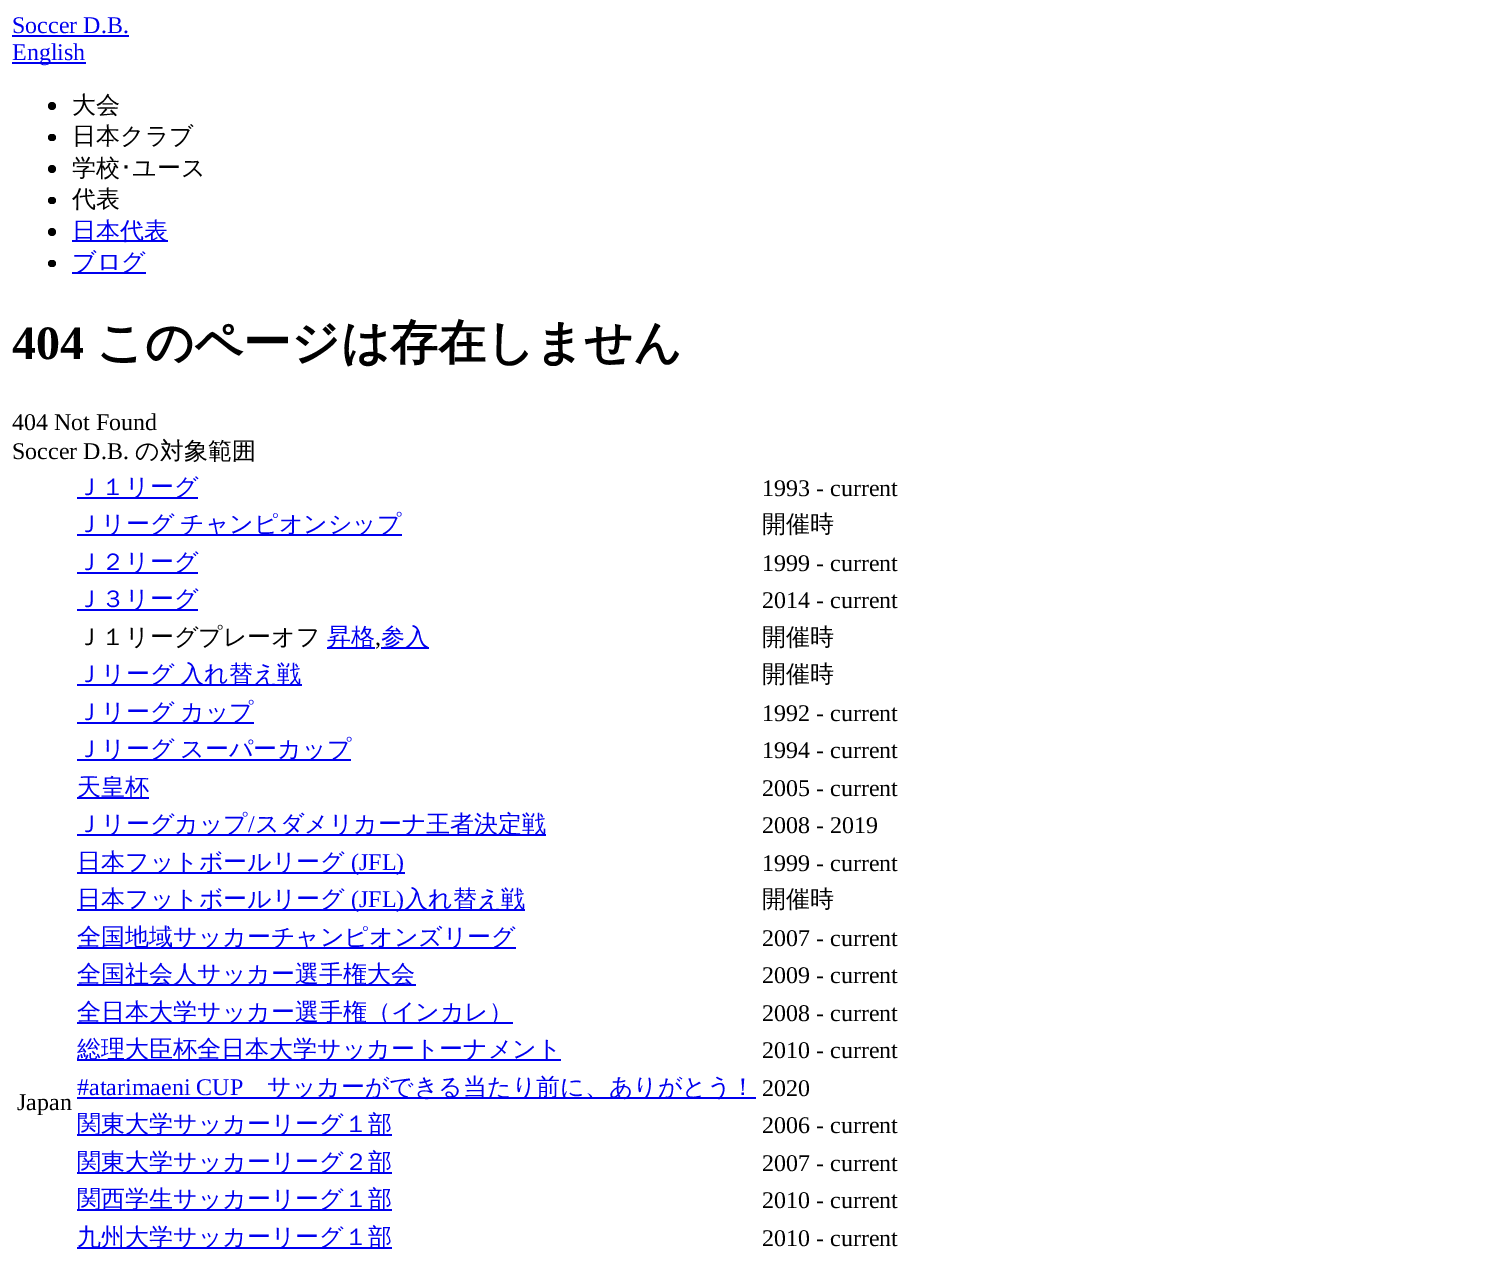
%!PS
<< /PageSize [1496 1270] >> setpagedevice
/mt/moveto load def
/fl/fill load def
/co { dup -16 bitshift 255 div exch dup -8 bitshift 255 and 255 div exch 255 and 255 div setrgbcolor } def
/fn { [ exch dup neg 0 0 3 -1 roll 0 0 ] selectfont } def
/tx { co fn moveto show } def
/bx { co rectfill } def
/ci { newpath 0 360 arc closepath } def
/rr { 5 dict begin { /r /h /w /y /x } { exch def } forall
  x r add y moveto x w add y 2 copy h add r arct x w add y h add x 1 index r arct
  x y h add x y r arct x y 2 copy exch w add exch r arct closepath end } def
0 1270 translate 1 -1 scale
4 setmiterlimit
0 0 1496 1270 16#FFFFFF bx
12 35 117 2 16#0000EE bx
12 62 74 2 16#0000EE bx
16#000000 co
52 106 4 ci fl
48 134 8 7 3.5 rr fl
52 169 4 ci fl
48 197 8 7 3.5 rr fl
52 232 4 ci fl
72 240 96 2 16#0000EE bx
16#000000 co
48 260 8 7 3.5 rr fl
72 272 74 2 16#0000EE bx
77 497 121 2 16#0000EE bx
77 534 325 2 16#0000EE bx
77 572 121 2 16#0000EE bx
77 609 121 2 16#0000EE bx
327 647 48 2 16#0000EE bx
381 647 48 2 16#0000EE bx
77 684 225 2 16#0000EE bx
77 722 177 2 16#0000EE bx
77 759 274 2 16#0000EE bx
77 797 72 2 16#0000EE bx
77 834 469 2 16#0000EE bx
77 872 328 2 16#0000EE bx
77 909 448 2 16#0000EE bx
77 947 439 2 16#0000EE bx
77 984 339 2 16#0000EE bx
77 1022 436 2 16#0000EE bx
77 1059 484 2 16#0000EE bx
77 1097 679 2 16#0000EE bx
77 1134 315 2 16#0000EE bx
77 1172 315 2 16#0000EE bx
77 1209 315 2 16#0000EE bx
77 1247 315 2 16#0000EE bx
(Soccer D.B.) 12 33 /LiberationSerif-Regular 24 16#0000EE tx
(English) 12 60 /LiberationSerif-Regular 24 16#0000EE tx
(大会) 72 113 /WenQuanYiZenHei-Medium 24 16#000000 tx
(日本クラブ) 72 144 /WenQuanYiZenHei-Medium 24 16#000000 tx
(学校) 72 176 /WenQuanYiZenHei-Medium 24 16#000000 tx
(･) 120 176 /IPAPGothic-Regular 24 16#000000 tx
(ユース) 132 176 /WenQuanYiZenHei-Medium 24 16#000000 tx
(代表) 72 207 /WenQuanYiZenHei-Medium 24 16#000000 tx
(日本代表) 72 239 /WenQuanYiZenHei-Medium 24 16#0000EE tx
(ブログ) 72 270 /WenQuanYiZenHei-Medium 24 16#0000EE tx
(404) 12 359 /LiberationSerif-Bold 48 16#000000 tx
(このページは存在しません) 96 359 /WenQuanYiZenHei-Bold 48 16#000000 tx
(404 Not Found) 12 430 /LiberationSerif-Regular 24 16#000000 tx
(Soccer D.B.) 12 459 /LiberationSerif-Regular 24 16#000000 tx
(の対象範囲) 135 459 /WenQuanYiZenHei-Medium 24 16#000000 tx
(Ｊ１リーグ) 77 495 /WenQuanYiZenHei-Medium 24 16#0000EE tx
(1993 - current) 762 496 /LiberationSerif-Regular 24 16#000000 tx
(Japan) 17 1110 /LiberationSerif-Regular 24 16#000000 tx
/WenQuanYiZenHei-Medium 24 fn
16#0000EE co
77 532 mt -1 0 32 (Ｊリーグ チャンピオンシップ) widthshow
(開催時) 762 532 /WenQuanYiZenHei-Medium 24 16#000000 tx
(Ｊ２リーグ) 77 570 /WenQuanYiZenHei-Medium 24 16#0000EE tx
(1999 - current) 762 571 /LiberationSerif-Regular 24 16#000000 tx
(Ｊ３リーグ) 77 607 /WenQuanYiZenHei-Medium 24 16#0000EE tx
(2014 - current) 762 608 /LiberationSerif-Regular 24 16#000000 tx
(Ｊ１リーグプレーオフ) 77 645 /WenQuanYiZenHei-Medium 24 16#000000 tx
(昇格) 327 645 /WenQuanYiZenHei-Medium 24 16#0000EE tx
(,) 375 645 /LiberationSerif-Regular 24 16#000000 tx
(参入) 381 645 /WenQuanYiZenHei-Medium 24 16#0000EE tx
(開催時) 762 645 /WenQuanYiZenHei-Medium 24 16#000000 tx
16#0000EE co
77 682 mt -1 0 32 (Ｊリーグ 入れ替え戦) widthshow
(開催時) 762 682 /WenQuanYiZenHei-Medium 24 16#000000 tx
16#0000EE co
77 720 mt -1 0 32 (Ｊリーグ カップ) widthshow
(1992 - current) 762 721 /LiberationSerif-Regular 24 16#000000 tx
/WenQuanYiZenHei-Medium 24 fn
16#0000EE co
77 757 mt -1 0 32 (Ｊリーグ スーパーカップ) widthshow
(1994 - current) 762 758 /LiberationSerif-Regular 24 16#000000 tx
(天皇杯) 77 795 /WenQuanYiZenHei-Medium 24 16#0000EE tx
(2005 - current) 762 796 /LiberationSerif-Regular 24 16#000000 tx
(Ｊリーグカップ) 77 832 /WenQuanYiZenHei-Medium 24 16#0000EE tx
(/) 248 832 /LiberationSerif-Regular 24 16#0000EE tx
(スダメリカーナ王者決定戦) 255 832 /WenQuanYiZenHei-Medium 24 16#0000EE tx
(2008 - 2019) 762 833 /LiberationSerif-Regular 24 16#000000 tx
(日本フットボールリーグ) 77 870 /WenQuanYiZenHei-Medium 24 16#0000EE tx
(\(JFL\)) 351 870 /LiberationSerif-Regular 24 16#0000EE tx
(1999 - current) 762 871 /LiberationSerif-Regular 24 16#000000 tx
(日本フットボールリーグ) 77 907 /WenQuanYiZenHei-Medium 24 16#0000EE tx
(\(JFL\)) 351 907 /LiberationSerif-Regular 24 16#0000EE tx
(入れ替え戦) 404 907 /WenQuanYiZenHei-Medium 24 16#0000EE tx
(開催時) 762 907 /WenQuanYiZenHei-Medium 24 16#000000 tx
(全国地域サッカーチャンピオンズリーグ) 77 945 /WenQuanYiZenHei-Medium 24 16#0000EE tx
(2007 - current) 762 946 /LiberationSerif-Regular 24 16#000000 tx
(全国社会人サッカー選手権大会) 77 982 /WenQuanYiZenHei-Medium 24 16#0000EE tx
(2009 - current) 762 983 /LiberationSerif-Regular 24 16#000000 tx
(全日本大学サッカー選手権（インカレ）) 77 1020 /WenQuanYiZenHei-Medium 24 16#0000EE tx
(2008 - current) 762 1021 /LiberationSerif-Regular 24 16#000000 tx
(総理大臣杯全日本大学サッカートーナメント) 77 1057 /WenQuanYiZenHei-Medium 24 16#0000EE tx
(2010 - current) 762 1058 /LiberationSerif-Regular 24 16#000000 tx
(#atarimaeni CUP) 77 1095 /LiberationSerif-Regular 24 16#0000EE tx
(サッカーができる当たり前に、ありがとう！) 267 1095 /WenQuanYiZenHei-Medium 24 16#0000EE tx
(2020) 762 1096 /LiberationSerif-Regular 24 16#000000 tx
(関東大学サッカーリーグ１部) 77 1132 /WenQuanYiZenHei-Medium 24 16#0000EE tx
(2006 - current) 762 1133 /LiberationSerif-Regular 24 16#000000 tx
(関東大学サッカーリーグ２部) 77 1170 /WenQuanYiZenHei-Medium 24 16#0000EE tx
(2007 - current) 762 1171 /LiberationSerif-Regular 24 16#000000 tx
(関西学生サッカーリーグ１部) 77 1207 /WenQuanYiZenHei-Medium 24 16#0000EE tx
(2010 - current) 762 1208 /LiberationSerif-Regular 24 16#000000 tx
(九州大学サッカーリーグ１部) 77 1245 /WenQuanYiZenHei-Medium 24 16#0000EE tx
(2010 - current) 762 1246 /LiberationSerif-Regular 24 16#000000 tx
showpage
